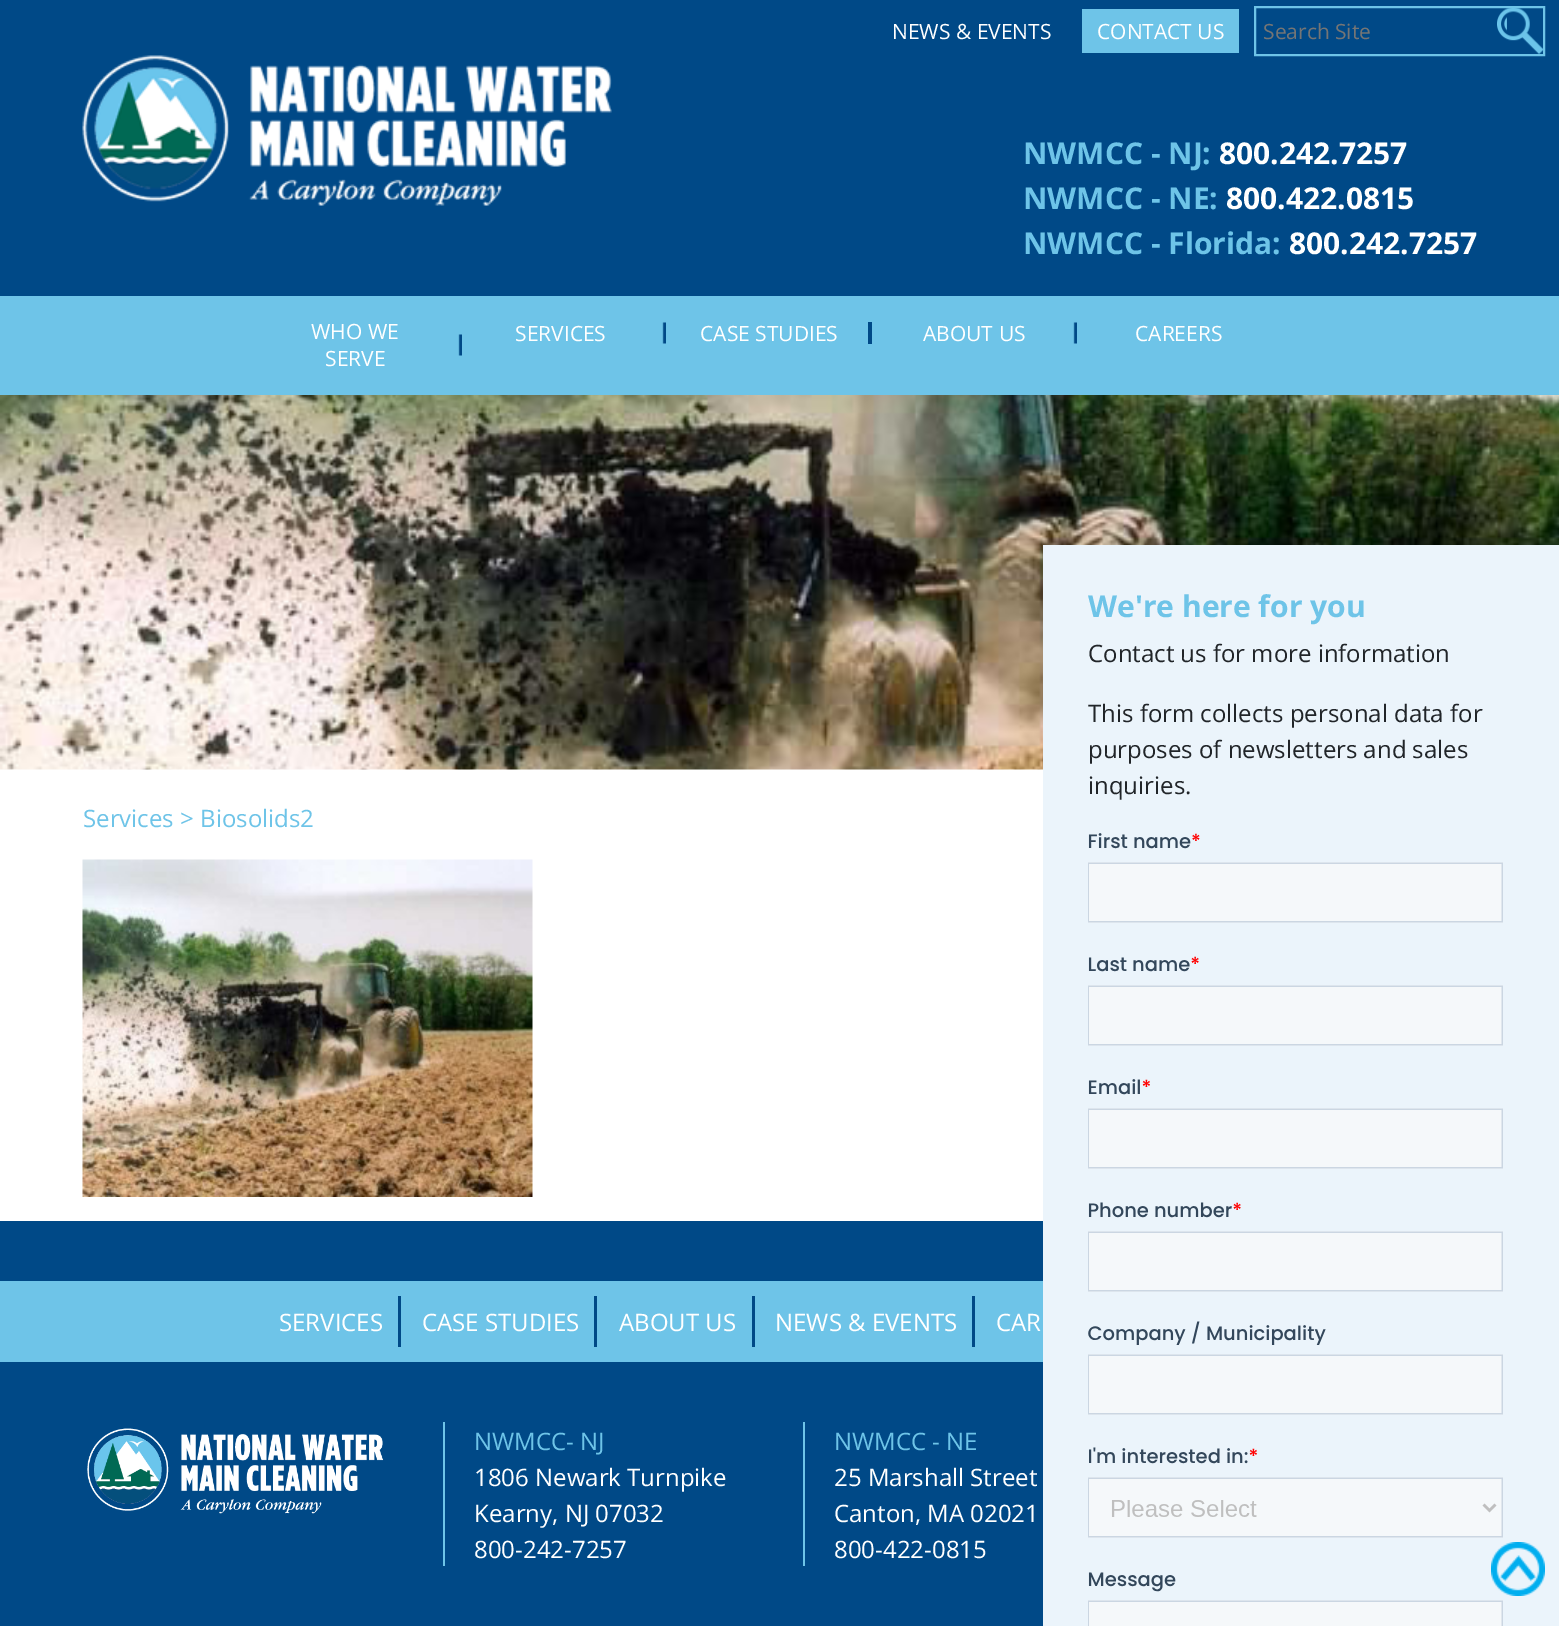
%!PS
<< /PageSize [1559 1626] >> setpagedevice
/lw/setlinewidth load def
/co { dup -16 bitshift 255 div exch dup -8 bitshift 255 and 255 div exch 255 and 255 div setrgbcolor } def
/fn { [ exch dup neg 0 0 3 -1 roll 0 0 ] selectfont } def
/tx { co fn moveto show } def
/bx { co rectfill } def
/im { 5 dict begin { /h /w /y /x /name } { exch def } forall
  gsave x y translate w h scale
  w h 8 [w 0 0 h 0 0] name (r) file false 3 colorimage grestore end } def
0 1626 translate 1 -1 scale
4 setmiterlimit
0 0 1559 1626 16#FFFFFF bx
0 0 1559 296 16#004987 bx
1082 9 157 44 16#6EC4E8 bx
(media/1.raw) 1497 8 46 46 im
2 lw
1255 7 289 48 rectstroke
(media/2.raw) 82 55 530 151 im
0 296 1559 99 16#6EC4E8 bx
(media/3.raw) 458 334 4 22 im
(media/3.raw) 662 322 4 22 im
868 322 4 22 16#004987 bx
(media/3.raw) 1073 322 4 22 im
(media/4.raw) 0 395 1559 375 im
1043 545 516 1081 16#EBF4FB bx
(media/5.raw) 1088 833 415 793 im
(media/6.raw) 82 859 451 338 im
0 1221 1043 405 16#004987 bx
0 1281 1043 81 16#6EC4E8 bx
398 1296 3 51 16#004987 bx
594 1296 3 51 16#004987 bx
752 1296 3 51 16#004987 bx
972 1296 3 51 16#004987 bx
(media/7.raw) 87 1428 297 86 im
443 1422 2 144 16#6EC4E8 bx
803 1422 2 144 16#6EC4E8 bx
(media/8.raw) 1491 1542 54 54 im
(NEWS & EVENTS) 892 39 /OpenSans-Regular 21 16#FFFFFF tx
(CONTACT US) 1097 39 /OpenSans-Regular 21 16#FFFFFF tx
(Search Site) 1263 39 /OpenSans-Regular 21 16#757575 tx
(NWMCC - NJ:) 1023 164 /OpenSans-Bold 30 16#6EC4E8 tx
(800.242.7257) 1219 164 /OpenSans-Bold 30 16#FFFFFF tx
(NWMCC - NE:) 1023 209 /OpenSans-Bold 30 16#6EC4E8 tx
(800.422.0815) 1226 209 /OpenSans-Bold 30 16#FFFFFF tx
(NWMCC - Florida:) 1023 254 /OpenSans-Bold 30 16#6EC4E8 tx
(800.242.7257) 1289 254 /OpenSans-Bold 30 16#FFFFFF tx
(WHO WE) 311 339 /OpenSans-Regular 21 16#FFFFFF tx
(SERVE) 325 366 /OpenSans-Regular 21 16#FFFFFF tx
(SERVICES) 515 341 /OpenSans-Regular 21 16#FFFFFF tx
(CASE STUDIES) 700 341 /OpenSans-Regular 21 16#FFFFFF tx
(ABOUT US) 923 341 /OpenSans-Regular 21 16#FFFFFF tx
(CAREERS) 1135 341 /OpenSans-Regular 21 16#FFFFFF tx
(We're here for you) 1088 617 /OpenSans-Bold 30 16#6EC4E8 tx
(Contact us for more information) 1088 662 /OpenSans-Regular 24 16#212529 tx
(This form collects personal data for) 1088 722 /OpenSans-Regular 24 16#212529 tx
(purposes of newsletters and sales) 1088 758 /OpenSans-Regular 24 16#212529 tx
(inquiries.) 1088 794 /OpenSans-Regular 24 16#212529 tx
(Services > Biosolids2) 83 827 /OpenSans-Regular 24 16#6EC4E8 tx
(SERVICES) 279 1331 /OpenSans-Regular 24 16#FFFFFF tx
(CASE STUDIES) 422 1331 /OpenSans-Regular 24 16#FFFFFF tx
(ABOUT US) 619 1331 /OpenSans-Regular 24 16#FFFFFF tx
(NEWS & EVENTS) 775 1331 /OpenSans-Regular 24 16#FFFFFF tx
(CAR) 996 1331 /OpenSans-Regular 24 16#FFFFFF tx
(NWMCC- NJ) 474 1450 /OpenSans-Regular 24 16#6EC4E8 tx
(1806 Newark Turnpike) 474 1486 /OpenSans-Regular 24 16#FFFFFF tx
(Kearny, NJ 07032) 474 1522 /OpenSans-Regular 24 16#FFFFFF tx
(800-242-7257) 474 1558 /OpenSans-Regular 24 16#FFFFFF tx
(NWMCC - NE) 834 1450 /OpenSans-Regular 24 16#6EC4E8 tx
(25 Marshall Street) 834 1486 /OpenSans-Regular 24 16#FFFFFF tx
(Canton, MA 02021) 834 1522 /OpenSans-Regular 24 16#FFFFFF tx
(800-422-0815) 834 1558 /OpenSans-Regular 24 16#FFFFFF tx
showpage
